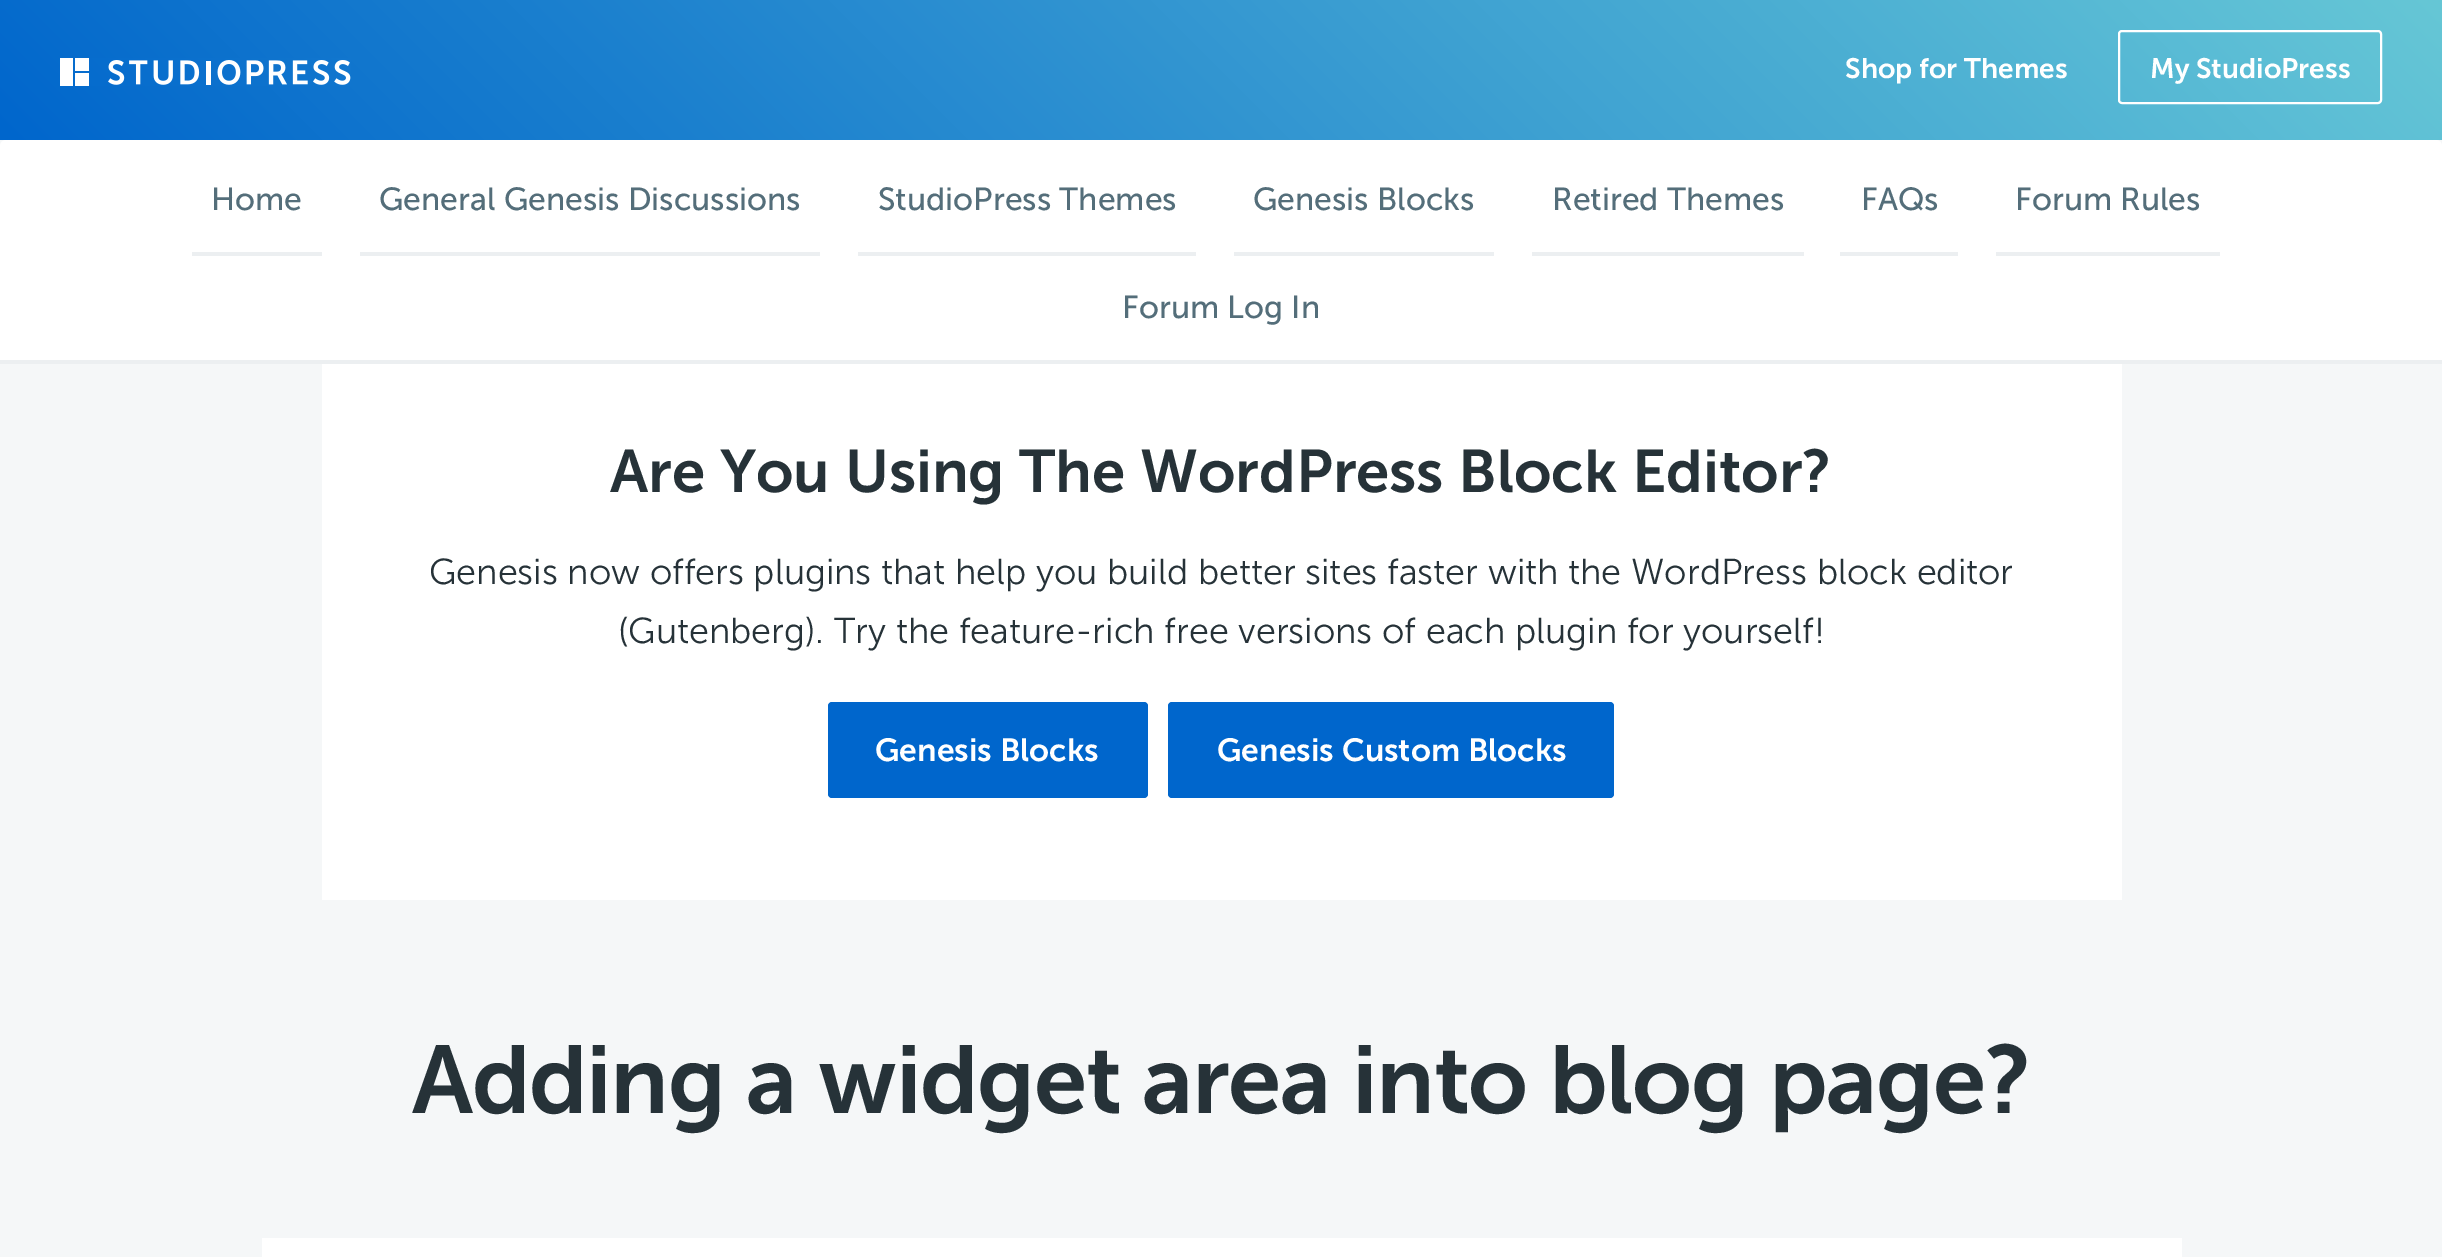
%!PS
<< /PageSize [2442 1257] >> setpagedevice
/mt/moveto load def
/li/lineto load def
/ct/curveto load def
/cp/closepath load def
/fl/fill load def
/st/stroke load def
/gs/gsave load def
/gr/grestore load def
/lw/setlinewidth load def
/co { dup -16 bitshift 255 div exch dup -8 bitshift 255 and 255 div exch 255 and 255 div setrgbcolor } def
/fn { [ exch dup neg 0 0 3 -1 roll 0 0 ] selectfont } def
/tx { co fn moveto show } def
/bx { co rectfill } def
/rr { 5 dict begin { /r /h /w /y /x } { exch def } forall
  x r add y moveto x w add y 2 copy h add r arct x w add y h add x 1 index r arct
  x y h add x y r arct x y 2 copy exch w add exch r arct closepath end } def
/im { 5 dict begin { /h /w /y /x /name } { exch def } forall
  gsave x y translate w h scale
  w h 8 [w 0 0 h 0 0] name (r) file false 3 colorimage grestore end } def
0 1257 translate 1 -1 scale
4 setmiterlimit
0 0 2442 1257 16#F5F7F8 bx
gs 0 0 mt 2442 0 li 2442 140 li 0 140 li cp clip newpath
<< /ShadingType 2 /ColorSpace /DeviceRGB /Coords [576 716 1867 -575] /Extend [true true] /Function << /FunctionType 2 /Domain [0 1] /C0 [0 .4 .8] /C1 [.4 .78 .839] /N 1 >> >> shfill gr
(media/1.raw) 60 58 291 28 im
16#FFFFFF co
2 lw
2119 31 262 72 3 rr st
6 140 mt 2436 140 li 2439.5 140 2442 142.5 2442 146 ct 2442 364 li 0 364 li 0 146 li 0 142.5 2.5 140 6 140 ct cp fl
0 360 2442 4 16#ECEFF1 bx
192 252 130 4 16#ECEFF1 bx
360 252 460 4 16#ECEFF1 bx
858 252 338 4 16#ECEFF1 bx
1234 252 260 4 16#ECEFF1 bx
1532 252 272 4 16#ECEFF1 bx
1840 252 118 4 16#ECEFF1 bx
1996 252 224 4 16#ECEFF1 bx
322 364 1800 536 16#FFFFFF bx
16#0066CC co
828 702 320 96 4 rr fl
1168 702 446 96 4 rr fl
262 1238 1920 19 16#FFFFFF bx
(Shop for Themes) 1845 78 /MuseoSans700-SemiBold 28 16#FFFFFF tx
(My StudioPress) 2150 78 /MuseoSans700-SemiBold 28 16#FFFFFF tx
(Home) 211 210 /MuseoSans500-Regular 32 16#546E7A tx
(General Genesis Discussions) 379 210 /MuseoSans500-Regular 32 16#546E7A tx
(StudioPress Themes) 878 210 /MuseoSans500-Regular 32 16#546E7A tx
(Genesis Blocks) 1253 210 /MuseoSans500-Regular 32 16#546E7A tx
(Retired Themes) 1552 210 /MuseoSans500-Regular 32 16#546E7A tx
(FAQs) 1861 210 /MuseoSans500-Regular 32 16#546E7A tx
(Forum Rules) 2015 210 /MuseoSans500-Regular 32 16#546E7A tx
(Forum Log In) 1122 318 /MuseoSans500-Regular 32 16#546E7A tx
(Are You Using The WordPress Block Editor?) 610 492 /MuseoSans700-SemiBold 60 16#263238 tx
(Genesis now offers plugins that help you build better sites faster with the WordPress block editor) 429 584 /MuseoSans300-Light 36 16#263238 tx
(\(Gutenberg\). Try the feature-rich free versions of each plugin for yourself!) 618 643 /MuseoSans300-Light 36 16#263238 tx
(Genesis Blocks) 875 761 /MuseoSans700-SemiBold 32 16#FFFFFF tx
(Genesis Custom Blocks) 1217 761 /MuseoSans700-SemiBold 32 16#FFFFFF tx
/MuseoSans700-SemiBold 96 fn
16#263238 co
412 1113 mt -1.4 0 (Adding a widget area into blog page?) ashow
showpage
